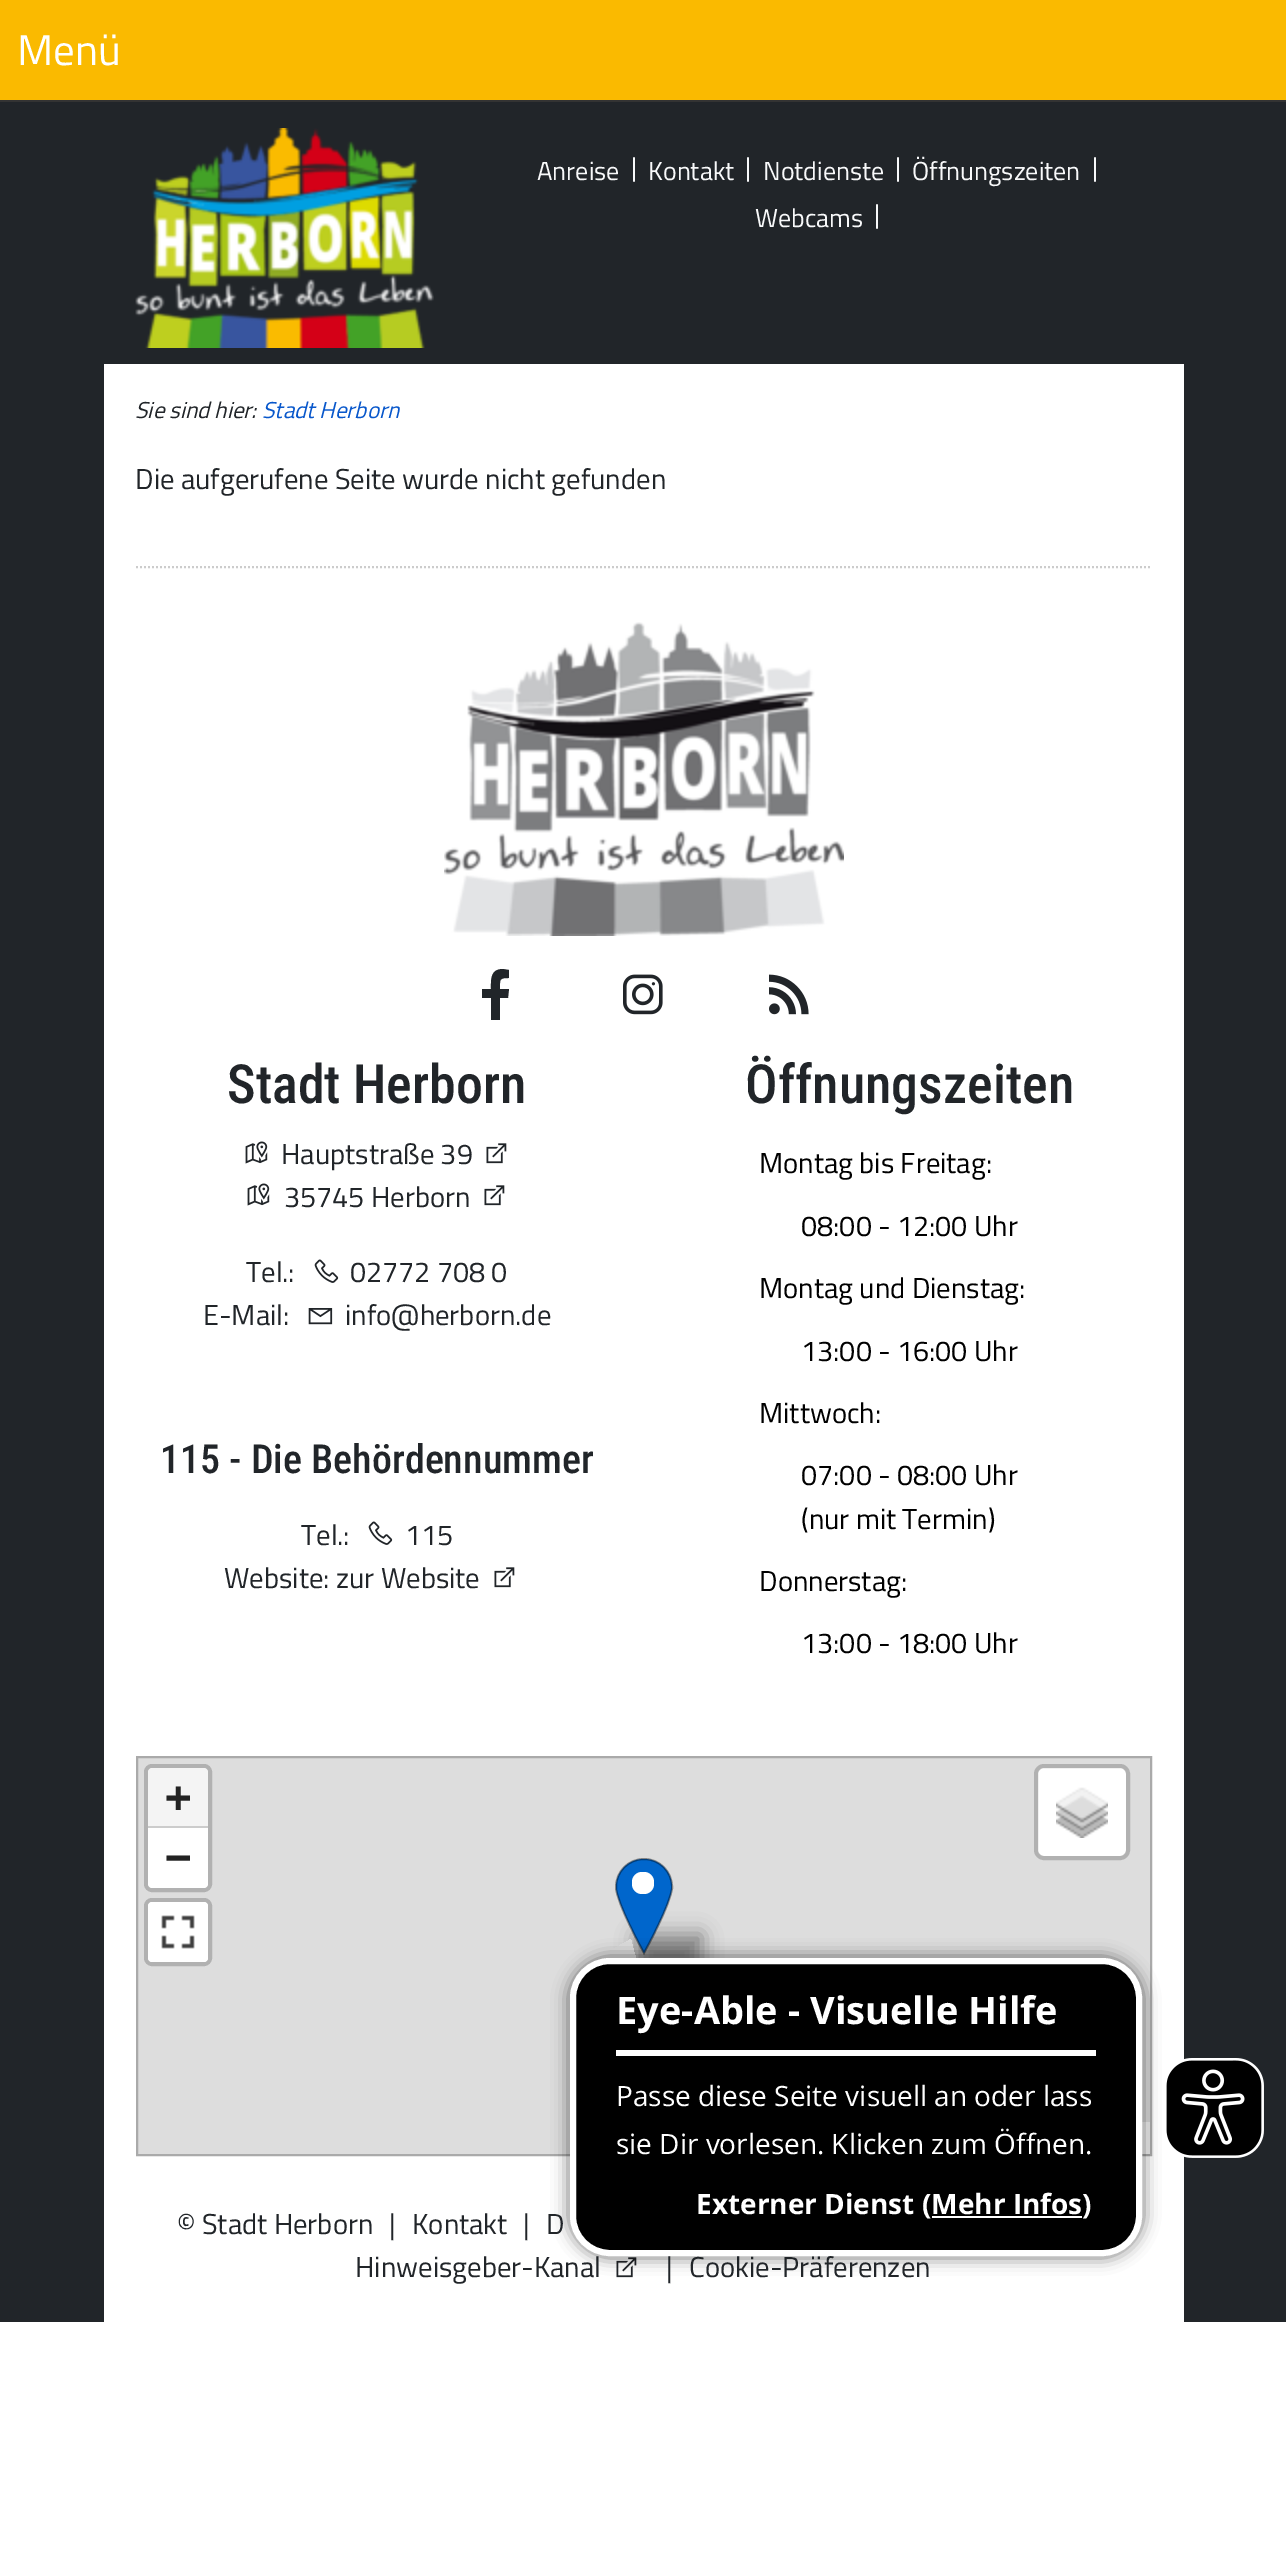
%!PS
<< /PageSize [1286 2553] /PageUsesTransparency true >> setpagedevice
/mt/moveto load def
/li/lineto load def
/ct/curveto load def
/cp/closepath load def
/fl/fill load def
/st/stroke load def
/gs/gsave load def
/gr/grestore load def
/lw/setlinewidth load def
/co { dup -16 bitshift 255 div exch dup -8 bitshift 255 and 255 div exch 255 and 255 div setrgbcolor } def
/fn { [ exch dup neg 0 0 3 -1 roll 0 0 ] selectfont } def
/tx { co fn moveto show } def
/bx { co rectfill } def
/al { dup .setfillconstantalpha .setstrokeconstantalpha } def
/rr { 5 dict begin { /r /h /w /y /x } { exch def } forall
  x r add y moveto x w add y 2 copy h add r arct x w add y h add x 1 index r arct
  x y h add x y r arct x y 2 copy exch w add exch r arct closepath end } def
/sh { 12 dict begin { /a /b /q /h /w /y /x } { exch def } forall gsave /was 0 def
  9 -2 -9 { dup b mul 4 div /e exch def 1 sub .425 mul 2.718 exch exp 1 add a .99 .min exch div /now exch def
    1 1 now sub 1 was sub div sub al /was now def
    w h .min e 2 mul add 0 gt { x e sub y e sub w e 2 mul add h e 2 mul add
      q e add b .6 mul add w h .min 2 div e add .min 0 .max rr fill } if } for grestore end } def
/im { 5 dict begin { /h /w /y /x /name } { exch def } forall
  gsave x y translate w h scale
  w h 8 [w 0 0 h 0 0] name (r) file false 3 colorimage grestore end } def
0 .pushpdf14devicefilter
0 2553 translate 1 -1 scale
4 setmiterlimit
0 0 1286 2553 16#FFFFFF bx
0 102 1286 2220 16#212529 bx
0 0 1286 100 16#FABA00 bx
0 100 1286 2 16#333333 bx
(media/1.raw) 135 128 299 220 im
104 364 1080 1958 16#FFFFFF bx
16#CCCCCC co
2 lw
[2 2] 0 setdash
136 567 mt 1152 567 li st
(media/2.raw) 444 622 400 314 im
16#212529 co
503 969 mt 490 969 491 980 491 989 ct 482 989 li 482 998 li 491 998 li 491 1020 li 500 1020 li 500 998 li 508 998 li 509 989 li 500 989 li 500 979 499 978 509 978 ct 509 970 li cp fl
(media/3.raw) 623 974 40 41 im
(media/4.raw) 769 974 40 41 im
(media/5.raw) 245 1141 23 23 im
(media/6.raw) 486 1143 21 21 im
(media/5.raw) 247 1183 23 23 im
(media/6.raw) 484 1185 21 21 im
(media/7.raw) 314 1259 25 24 im
(media/8.raw) 308 1308 25 17 im
(media/7.raw) 368 1521 25 24 im
(media/6.raw) 494 1567 21 21 im
16#DDDDDD co
137 1757 mt 1151 1757 li 1151 2155 li 137 2155 li cp gs fl gr
16#AAAAAA co
[] 0 setdash
st
16#B1B1B1 co
4 lw
146 1766 64 124 6 rr st
16#F4F4F4 co
152 1768 mt 204 1768 li 206 1768 208 1770 208 1772 ct 208 1828 li 148 1828 li 148 1772 li 148 1770 150 1768 152 1768 ct cp fl
148 1826 60 2 16#CCCCCC bx
16#FFFFFF co
148 1828 mt 208 1828 li 208 1884 li 208 1886 206 1888 204 1888 ct 152 1888 li 150 1888 148 1886 148 1884 ct cp fl
16#B1B1B1 co
146 1900 64 64 6 rr st
16#FFFFFF co
148 1902 60 60 4 rr fl
(media/9.raw) 161 1915 34 34 im
1038 1768 88 88 6 rr fl
0.2 al
16#000000 co
1036 1766 92 92 8 rr st
1 al
(media/10.raw) 1056 1787 52 51 im
1142 2122 8 32 16#F5F5F5 bx
gs
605 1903 mt 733 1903 li 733 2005 li 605 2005 li cp 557.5 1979 mt 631.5 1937.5 li 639.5 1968.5 li 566 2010 li cp eoclip newpath
16#000000 co
636 1934 66 40 0 10 .4 sh
gr
16#0066CC co
644 1859 mt 628 1859 616 1872 616 1887 ct 616 1902 644 1953 644 1953 ct 644 1953 672 1902 672 1887 ct 672 1872 660 1859 644 1859 ct cp fl
0.4 al
16#000000 co
1.9 lw
644 1859 mt 628.5 1859 616 1871.5 616 1887 ct 616 1902.5 644 1953 644 1953 ct 644 1953 672 1902.5 672 1887 ct 672 1871.5 659.5 1859 644 1859 ct cp st
1 al
16#FFFFFF co
632 1872 22 22 10 rr fl
(media/6.raw) 616 2257 21 21 im
16#000000 co
568 1956 576 302 42 8 .5 sh
573 1961 566 292 37 rr gs fl gr
16#FFFFFF co
6 lw
st
616 2050 480 6 16#FFFFFF bx
932 2216 150 2 16#FFFFFF bx
(media/11.raw) 1166 2058 98 100 im
(Menü) 17 65 /TitilliumWeb-Regular 43 16#FFFFFF tx
(Anreise) 537 180 /TitilliumWeb-Regular 26 16#F8F9FA tx
(|) 631 176 /TitilliumWeb-Regular 26 16#F8F9FA tx
(Kontakt) 648 180 /TitilliumWeb-Regular 26 16#F8F9FA tx
(|) 745 176 /TitilliumWeb-Regular 26 16#F8F9FA tx
(Notdienste) 763 180 /TitilliumWeb-Regular 26 16#F8F9FA tx
(|) 895 176 /TitilliumWeb-Regular 26 16#F8F9FA tx
(Öffnungszeiten) 912 180 /TitilliumWeb-Regular 26 16#F8F9FA tx
(|) 1092 176 /TitilliumWeb-Regular 26 16#F8F9FA tx
(Webcams) 755 227 /TitilliumWeb-Regular 26 16#F8F9FA tx
(|) 874 223 /TitilliumWeb-Regular 26 16#F8F9FA tx
(Sie sind hier:) 135 418 /TitilliumWeb-Italic 23 16#212529 tx
(Stadt Herborn) 262 418 /TitilliumWeb-Italic 23 16#0857CB tx
(Die aufgerufene Seite wurde nicht gefunden) 135 489 /TitilliumWeb-Regular 28.75 16#212529 tx
(Stadt Herborn) 227 1103 /RobotoCondensed-Medium 54 16#212529 tx
(Hauptstraße 39) 281 1164 /TitilliumWeb-Regular 28.75 16#212529 tx
(35745 Herborn) 284 1207 /TitilliumWeb-Regular 28.75 16#212529 tx
(Tel.:) 246 1282 /TitilliumWeb-Regular 28.75 16#212529 tx
(02772 708 0) 350 1282 /TitilliumWeb-Regular 28.75 16#212529 tx
(E-Mail:) 203 1325 /TitilliumWeb-Regular 28.75 16#212529 tx
(info@herborn.de) 345 1325 /TitilliumWeb-Regular 28.75 16#212529 tx
(115 - Die Behördennummer) 160 1473 /RobotoCondensed-Medium 40 16#212529 tx
(Tel.:) 301 1545 /TitilliumWeb-Regular 28.75 16#212529 tx
(115) 405 1545 /TitilliumWeb-Regular 28.75 16#212529 tx
(Website: zur Website) 224 1588 /TitilliumWeb-Regular 28.75 16#212529 tx
(Öffnungszeiten) 745 1103 /RobotoCondensed-Medium 54 16#212529 tx
(Montag bis Freitag:) 759 1173 /TitilliumWeb-Regular 28.75 16#000000 tx
(08:00 - 12:00 Uhr) 801 1236 /TitilliumWeb-Regular 28.75 16#000000 tx
(Montag und Dienstag:) 759 1298 /TitilliumWeb-Regular 28.75 16#000000 tx
(13:00 - 16:00 Uhr) 801 1361 /TitilliumWeb-Regular 28.75 16#000000 tx
(Mittwoch:) 759 1423 /TitilliumWeb-Regular 28.75 16#000000 tx
(07:00 - 08:00 Uhr) 801 1485 /TitilliumWeb-Regular 28.75 16#000000 tx
(\(nur mit Termin\)) 801 1529 /TitilliumWeb-Regular 28.75 16#000000 tx
(Donnerstag:) 759 1591 /TitilliumWeb-Regular 28.75 16#000000 tx
(13:00 - 18:00 Uhr) 801 1653 /TitilliumWeb-Regular 28.75 16#000000 tx
(+) 165 1812 /DejaVuSansMono-Bold 44 16#222222 tx
(−) 165 1872 /DejaVuSansMono-Bold 44 16#222222 tx
(© Stadt Herborn) 177 2234 /TitilliumWeb-Regular 28.75 16#212529 tx
(|) 389 2234 /TitilliumWeb-Regular 28.75 16#212529 tx
(Kontakt) 412 2234 /TitilliumWeb-Regular 28.75 16#212529 tx
(|) 523 2234 /TitilliumWeb-Regular 28.75 16#212529 tx
(D) 546 2234 /TitilliumWeb-Regular 28.75 16#212529 tx
(Hinweisgeber-Kanal) 355 2277 /TitilliumWeb-Regular 28.75 16#212529 tx
(|) 666 2277 /TitilliumWeb-Regular 28.75 16#212529 tx
(Cookie-Präferenzen) 689 2277 /TitilliumWeb-Regular 28.75 16#212529 tx
(Eye-Able - Visuelle Hilfe) 616 2024 /OpenSans-Bold 38 16#FFFFFF tx
(Passe diese Seite visuell an oder lass) 616 2106 /OpenSans-Regular 28 16#FFFFFF tx
(sie Dir vorlesen. Klicken zum Öffnen.) 616 2154 /OpenSans-Regular 28 16#FFFFFF tx
(Externer Dienst \(Mehr Infos\)) 696 2214 /OpenSans-Bold 28 16#FFFFFF tx
.poppdf14devicefilter showpage
